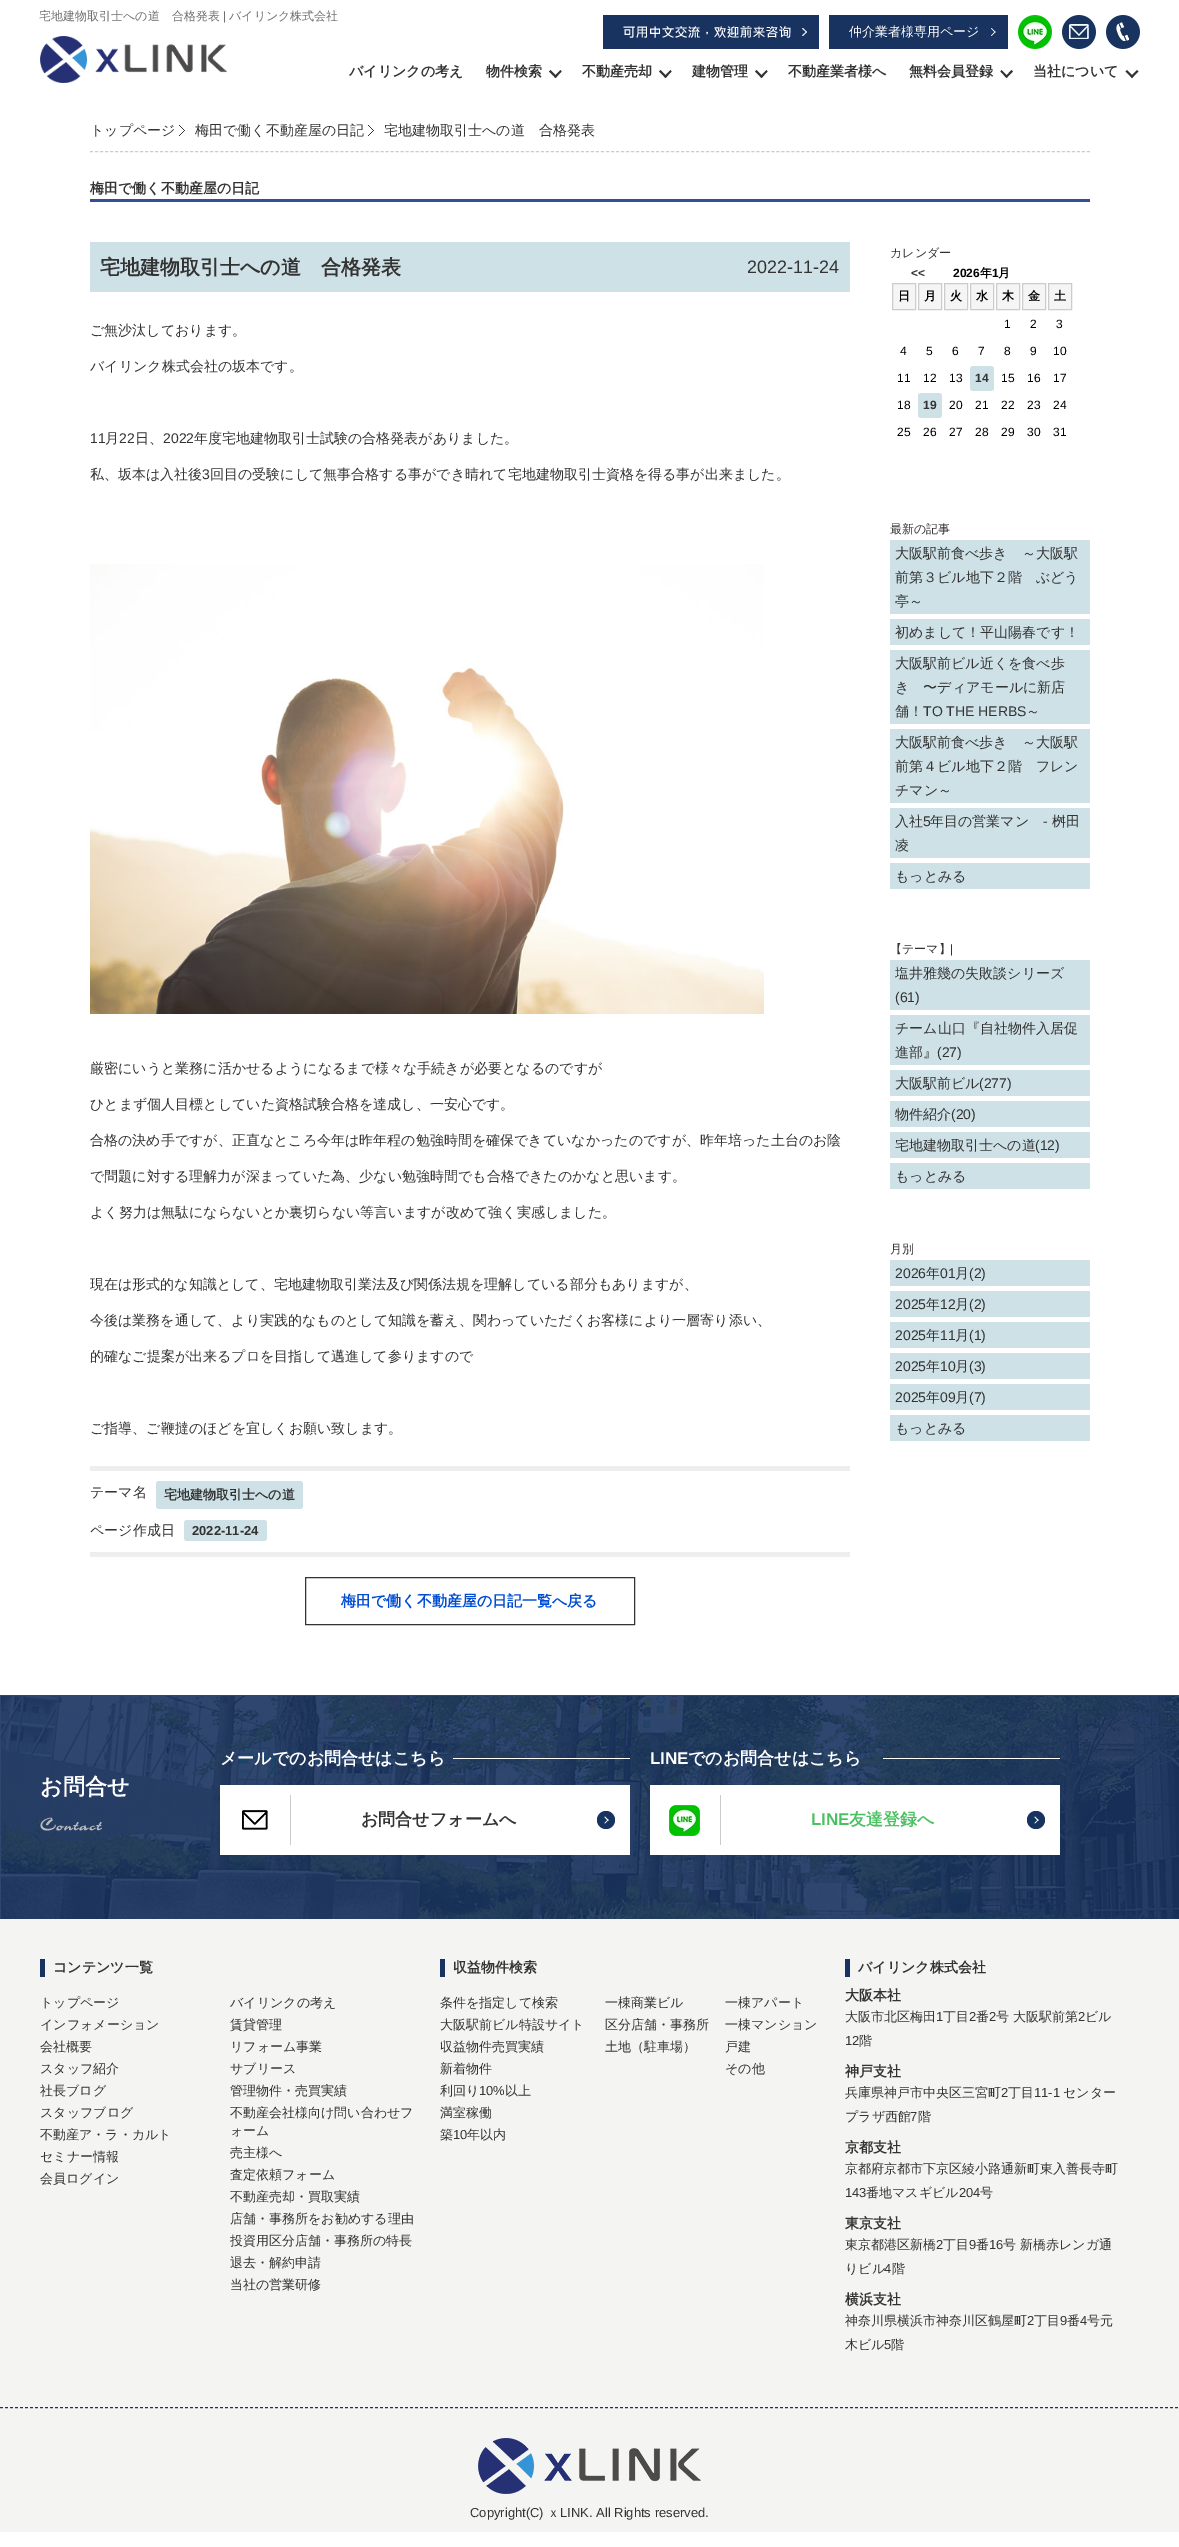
%!PS
<< /PageSize [1179 2547] >> setpagedevice
/mt/moveto load def
/li/lineto load def
/cp/closepath load def
/fl/fill load def
/st/stroke load def
/gs/gsave load def
/gr/grestore load def
/co { dup -16 bitshift 255 div exch dup -8 bitshift 255 and 255 div exch 255 and 255 div setrgbcolor } def
/fn { [ exch dup neg 0 0 3 -1 roll 0 0 ] selectfont } def
/tx { co fn moveto show } def
/bx { co rectfill } def
/ci { newpath 0 360 arc closepath } def
/rr { 5 dict begin { /r /h /w /y /x } { exch def } forall
  x r add y moveto x w add y 2 copy h add r arct x w add y h add x 1 index r arct
  x y h add x y r arct x y 2 copy exch w add exch r arct closepath end } def
/im { 5 dict begin { /h /w /y /x /name } { exch def } forall
  gsave x y translate w h scale
  w h 8 [w 0 0 h 0 0] name (r) file false 3 colorimage grestore end } def
0 2547 translate 1 -1 scale
4 setmiterlimit
0 0 1179 2547 16#FFFFFF bx
(media/1.raw) 40 36 187 47 im
603 15 216 34 16#18335F bx
(media/2.raw) 623 26 168 12 im
16#FFFFFF co
803 28 mt 807 32 li 806.5 32.5 li 802 28.5 li cp fl
806.5 31.5 mt 807 32 li 803 36 li 802 35.5 li cp fl
829 15 179 34 16#18335F bx
16#FFFFFF co
991.5 28 mt 995.5 32 li 995 32.5 li 991 28.5 li cp fl
995 31.5 mt 995.5 32 li 991.5 36 li 991 35.5 li cp fl
(media/3.raw) 1018 15 34 34 im
(media/4.raw) 1062 15 34 34 im
(media/5.raw) 1106 15 34 34 im
16#333333 co
561.5 71.5 mt 555.5 78 li 554 76.5 li 560.5 70 li cp fl
557 76.5 mt 555.5 78 li 549 71.5 li 550.5 70 li cp fl
671.5 71.5 mt 665.5 78 li 664 76.5 li 670.5 70 li cp fl
667 76.5 mt 665.5 78 li 659 71.5 li 660.5 70 li cp fl
767.5 71.5 mt 761.5 78 li 760 76.5 li 766.5 70 li cp fl
763 76.5 mt 761.5 78 li 755 71.5 li 756.5 70 li cp fl
1013 71.5 mt 1006.5 78 li 1005.5 76.5 li 1011.5 70 li cp fl
1008 76.5 mt 1006.5 78 li 1000.5 71.5 li 1001.5 70 li cp fl
1138.5 71.5 mt 1132 78 li 1130.5 76.5 li 1137 70 li cp fl
1133.5 76.5 mt 1132 78 li 1125.5 71.5 li 1127 70 li cp fl
16#CCCCCC co
[3 2.01] 0 setdash
90 151.5 mt 1090 151.5 li st
(media/6.raw) 179 125 6 11 im
(media/6.raw) 368 125 6 11 im
90 199 1000 3 16#364E96 bx
90 242 760 50 16#CEE1E7 bx
(media/7.raw) 90 564 674 450 im
90 1466 760 5 16#EEEEEE bx
90 1552 760 5 16#EEEEEE bx
16#CEE1E7 co
156 1481 147 28 3 rr fl
184 1520 83 21 3 rr fl
16#333333 co
[] 0 setdash
305.5 1577.5 329 47 rectstroke
16#F5F5F5 co
892.5 283.5 mt 915.5 283.5 li 915.5 309.5 li 892.5 309.5 li cp gs fl gr
16#CCCCCC co
st
16#F5F5F5 co
918.5 283.5 mt 941.5 283.5 li 941.5 309.5 li 918.5 309.5 li cp gs fl gr
16#CCCCCC co
st
16#F5F5F5 co
944.5 283.5 mt 967.5 283.5 li 967.5 309.5 li 944.5 309.5 li cp gs fl gr
16#CCCCCC co
st
16#F5F5F5 co
970.5 283.5 mt 993.5 283.5 li 993.5 309.5 li 970.5 309.5 li cp gs fl gr
16#CCCCCC co
st
16#F5F5F5 co
996.5 283.5 mt 1019.5 283.5 li 1019.5 309.5 li 996.5 309.5 li cp gs fl gr
16#CCCCCC co
st
16#F5F5F5 co
1022.5 283.5 mt 1045.5 283.5 li 1045.5 309.5 li 1022.5 309.5 li cp gs fl gr
16#CCCCCC co
st
16#F5F5F5 co
1048.5 283.5 mt 1071.5 283.5 li 1071.5 309.5 li 1048.5 309.5 li cp gs fl gr
16#CCCCCC co
st
16#CEE1E7 co
970 366 24 25 3 rr fl
918 393 24 25 3 rr fl
890 540 200 74 16#CEE1E7 bx
890 619 200 26 16#CEE1E7 bx
890 650 200 74 16#CEE1E7 bx
890 729 200 74 16#CEE1E7 bx
890 808 200 50 16#CEE1E7 bx
890 863 200 26 16#CEE1E7 bx
890 960 200 50 16#CEE1E7 bx
890 1015 200 50 16#CEE1E7 bx
890 1070 200 26 16#CEE1E7 bx
890 1101 200 26 16#CEE1E7 bx
890 1132 200 26 16#CEE1E7 bx
890 1163 200 26 16#CEE1E7 bx
890 1260 200 26 16#CEE1E7 bx
890 1291 200 26 16#CEE1E7 bx
890 1322 200 26 16#CEE1E7 bx
890 1353 200 26 16#CEE1E7 bx
890 1384 200 26 16#CEE1E7 bx
890 1415 200 26 16#CEE1E7 bx
(media/8.raw) 0 1695 1179 224 im
(media/9.raw) 40 1817 62 14 im
453 1758 177 1 16#FFFFFF bx
220 1785 410 70 16#FFFFFF bx
290 1795 1 50 16#CCCCCC bx
(media/10.raw) 242 1810 26 20 im
16#17335F co
606 1820 9 ci fl
16#FFFFFF co
605 1816.5 mt 608.5 1820 li 608 1821 li 604.5 1817 li cp fl
608 1819.5 mt 608.5 1820 li 605 1823.5 li 604.5 1823 li cp fl
883 1758 177 1 16#FFFFFF bx
650 1785 410 70 16#FFFFFF bx
720 1795 1 50 16#CCCCCC bx
(media/11.raw) 669 1805 31 31 im
16#17335F co
1036 1820 9 ci fl
16#FFFFFF co
1035 1816.5 mt 1038.5 1820 li 1038 1821 li 1034.5 1817 li cp fl
1038 1819.5 mt 1038.5 1820 li 1035 1823.5 li 1034.5 1823 li cp fl
0 1919 1179 613 16#F4F4F2 bx
40 1959 5 18 16#18335F bx
440 1959 5 18 16#18335F bx
845 1959 5 18 16#18335F bx
[3 2] 0 setdash
0 2407.5 mt 1179 2407.5 li st
(media/12.raw) 478 2438 223 56 im
(宅地建物取引士への道　合格発表) 39 20 /WenQuanYiZenHei-Medium 12 16#6F6F6F tx
(|) 223 20 /LiberationSans-Regular 12 16#6F6F6F tx
(バイリンク株式会社) 229 20 /WenQuanYiZenHei-Medium 12 16#6F6F6F tx
(仲介業者様専用ページ) 849 36 /WenQuanYiZenHei-Medium 13 16#FFFFFF tx
(バイリンクの考え) 349 76 /WenQuanYiZenHei-Bold 14 16#333333 tx
(物件検索) 486 76 /WenQuanYiZenHei-Bold 14 16#333333 tx
(不動産売却) 582 76 /WenQuanYiZenHei-Bold 14 16#333333 tx
(建物管理) 692 76 /WenQuanYiZenHei-Bold 14 16#333333 tx
(不動産業者様へ) 788 76 /WenQuanYiZenHei-Bold 14 16#333333 tx
(無料会員登録) 909 76 /WenQuanYiZenHei-Bold 14 16#333333 tx
(当社について) 1033 76 /WenQuanYiZenHei-Bold 14 16#333333 tx
(トップページ) 90 135 /WenQuanYiZenHei-Medium 14 16#333333 tx
(梅田で働く不動産屋の日記) 195 135 /WenQuanYiZenHei-Medium 14 16#333333 tx
(宅地建物取引士への道　合格発表) 384 135 /WenQuanYiZenHei-Medium 14 16#333333 tx
(梅田で働く不動産屋の日記) 90 193 /WenQuanYiZenHei-Bold 14 16#333333 tx
(宅地建物取引士への道　合格発表) 100 274 /WenQuanYiZenHei-Bold 20 16#333333 tx
(2022-11-24) 747 273 /LiberationSans-Regular 18 16#333333 tx
(ご無沙汰しております。) 90 335 /WenQuanYiZenHei-Medium 14 16#333333 tx
(バイリンク株式会社の坂本です。) 90 371 /WenQuanYiZenHei-Medium 14 16#333333 tx
(11) 90 443 /LiberationSans-Regular 14 16#333333 tx
(月) 105 443 /WenQuanYiZenHei-Medium 14 16#333333 tx
(22) 119 443 /LiberationSans-Regular 14 16#333333 tx
(日、) 135 443 /WenQuanYiZenHei-Medium 14 16#333333 tx
(2022) 163 443 /LiberationSans-Regular 14 16#333333 tx
(年度宅地建物取引士試験の合格発表がありました。) 194 443 /WenQuanYiZenHei-Medium 14 16#333333 tx
(私、坂本は入社後) 90 479 /WenQuanYiZenHei-Medium 14 16#333333 tx
(3) 202 479 /LiberationSans-Regular 14 16#333333 tx
(回目の受験にして無事合格する事ができ晴れて宅地建物取引士資格を得る事が出来ました。) 210 479 /WenQuanYiZenHei-Medium 14 16#333333 tx
(厳密にいうと業務に活かせるようになるまで様々な手続きが必要となるのですが) 90 1073 /WenQuanYiZenHei-Medium 14 16#333333 tx
(ひとまず個人目標としていた資格試験合格を達成し、一安心です。) 90 1109 /WenQuanYiZenHei-Medium 14 16#333333 tx
(合格の決め手ですが、正直なところ今年は昨年程の勉強時間を確保できていなかったのですが、昨年培った土台のお陰) 90 1145 /WenQuanYiZenHei-Medium 14 16#333333 tx
(で問題に対する理解力が深まっていた為、少ない勉強時間でも合格できたのかなと思います。) 90 1181 /WenQuanYiZenHei-Medium 14 16#333333 tx
(よく努力は無駄にならないとか裏切らない等言いますが改めて強く実感しました。) 90 1217 /WenQuanYiZenHei-Medium 14 16#333333 tx
gs
90 242 1000 1413 rectclip
(現在は形式的な知識として、宅地建物取引業法及び関係法規を理解している部分もありますが、) 90 1289 /WenQuanYiZenHei-Medium 14 16#333333 tx
gr
(今後は業務を通して、より実践的なものとして知識を蓄え、関わっていただくお客様により一層寄り添い、) 90 1325 /WenQuanYiZenHei-Medium 14 16#333333 tx
(的確なご提案が出来るプロを目指して邁進して参りますので) 90 1361 /WenQuanYiZenHei-Medium 14 16#333333 tx
(ご指導、ご鞭撻のほどを宜しくお願い致します。) 90 1433 /WenQuanYiZenHei-Medium 14 16#333333 tx
(テーマ名) 90 1497 /WenQuanYiZenHei-Medium 14 16#333333 tx
(宅地建物取引士への道) 164 1499 /WenQuanYiZenHei-Bold 13 16#333333 tx
(ページ作成日) 90 1535 /WenQuanYiZenHei-Medium 14 16#333333 tx
(2022-11-24) 192 1535 /LiberationSans-Bold 13 16#333333 tx
(梅田で働く不動産屋の日記一覧へ戻る) 341 1606 /WenQuanYiZenHei-Bold 15 16#004CD3 tx
(カレンダー) 890 257 /WenQuanYiZenHei-Medium 12 16#333333 tx
(<<) 911 277 /LiberationSans-Bold 12 16#333333 tx
(2026) 953 277 /LiberationSans-Bold 12 16#000000 tx
(年) 980 277 /WenQuanYiZenHei-Bold 12 16#000000 tx
(1) 992 277 /LiberationSans-Bold 12 16#000000 tx
(月) 998 277 /WenQuanYiZenHei-Bold 12 16#000000 tx
(日) 898 300 /WenQuanYiZenHei-Bold 12 16#000000 tx
(月) 924 300 /WenQuanYiZenHei-Bold 12 16#000000 tx
(火) 950 300 /WenQuanYiZenHei-Bold 12 16#000000 tx
(水) 976 300 /WenQuanYiZenHei-Bold 12 16#000000 tx
(木) 1002 300 /WenQuanYiZenHei-Bold 12 16#000000 tx
(金) 1028 300 /WenQuanYiZenHei-Bold 12 16#000000 tx
(土) 1054 300 /WenQuanYiZenHei-Bold 12 16#000000 tx
(1) 1004 328 /LiberationSans-Regular 12 16#000000 tx
(2) 1030 328 /LiberationSans-Regular 12 16#000000 tx
(3) 1056 328 /LiberationSans-Regular 12 16#000000 tx
(4) 900 355 /LiberationSans-Regular 12 16#000000 tx
(5) 926 355 /LiberationSans-Regular 12 16#000000 tx
(6) 952 355 /LiberationSans-Regular 12 16#000000 tx
(7) 978 355 /LiberationSans-Regular 12 16#000000 tx
(8) 1004 355 /LiberationSans-Regular 12 16#000000 tx
(9) 1030 355 /LiberationSans-Regular 12 16#000000 tx
(10) 1053 355 /LiberationSans-Regular 12 16#000000 tx
(11) 897 382 /LiberationSans-Regular 12 16#000000 tx
(12) 923 382 /LiberationSans-Regular 12 16#000000 tx
(13) 949 382 /LiberationSans-Regular 12 16#000000 tx
(14) 975 382 /LiberationSans-Bold 12 16#333333 tx
(15) 1001 382 /LiberationSans-Regular 12 16#000000 tx
(16) 1027 382 /LiberationSans-Regular 12 16#000000 tx
(17) 1053 382 /LiberationSans-Regular 12 16#000000 tx
(18) 897 409 /LiberationSans-Regular 12 16#000000 tx
(19) 923 409 /LiberationSans-Bold 12 16#333333 tx
(20) 949 409 /LiberationSans-Regular 12 16#000000 tx
(21) 975 409 /LiberationSans-Regular 12 16#000000 tx
(22) 1001 409 /LiberationSans-Regular 12 16#000000 tx
(23) 1027 409 /LiberationSans-Regular 12 16#000000 tx
(24) 1053 409 /LiberationSans-Regular 12 16#000000 tx
(25) 897 436 /LiberationSans-Regular 12 16#000000 tx
(26) 923 436 /LiberationSans-Regular 12 16#000000 tx
(27) 949 436 /LiberationSans-Regular 12 16#000000 tx
(28) 975 436 /LiberationSans-Regular 12 16#000000 tx
(29) 1001 436 /LiberationSans-Regular 12 16#000000 tx
(30) 1027 436 /LiberationSans-Regular 12 16#000000 tx
(31) 1053 436 /LiberationSans-Regular 12 16#000000 tx
(最新の記事) 890 533 /WenQuanYiZenHei-Medium 12 16#333333 tx
(大阪駅前食べ歩き　～大阪駅) 895 558 /WenQuanYiZenHei-Medium 14 16#333333 tx
(前第３ビル地下２階　ぶどう) 895 582 /WenQuanYiZenHei-Medium 14 16#333333 tx
(亭～) 895 606 /WenQuanYiZenHei-Medium 14 16#333333 tx
(初めまして！平山陽春です！) 895 637 /WenQuanYiZenHei-Medium 14 16#333333 tx
(大阪駅前ビル近くを食べ歩) 895 668 /WenQuanYiZenHei-Medium 14 16#333333 tx
(き　〜ディアモールに新店) 895 692 /WenQuanYiZenHei-Medium 14 16#333333 tx
(舗！) 895 716 /WenQuanYiZenHei-Medium 14 16#333333 tx
(TO THE HERBS) 923 716 /LiberationSans-Regular 14 16#333333 tx
(～) 1026 716 /WenQuanYiZenHei-Medium 14 16#333333 tx
(大阪駅前食べ歩き　～大阪駅) 895 747 /WenQuanYiZenHei-Medium 14 16#333333 tx
(前第４ビル地下２階　フレン) 895 771 /WenQuanYiZenHei-Medium 14 16#333333 tx
(チマン～) 895 795 /WenQuanYiZenHei-Medium 14 16#333333 tx
(入社) 895 826 /WenQuanYiZenHei-Medium 14 16#333333 tx
(5) 923 826 /LiberationSans-Regular 14 16#333333 tx
(年目の営業マン) 930 826 /WenQuanYiZenHei-Medium 14 16#333333 tx
(-) 1043 826 /LiberationSans-Regular 14 16#333333 tx
(桝田) 1052 826 /WenQuanYiZenHei-Medium 14 16#333333 tx
(凌) 895 850 /WenQuanYiZenHei-Medium 14 16#333333 tx
(もっとみる) 895 881 /WenQuanYiZenHei-Medium 14 16#333333 tx
(【テーマ】) 890 953 /WenQuanYiZenHei-Medium 12 16#333333 tx
(|) 950 953 /LiberationSans-Regular 12 16#333333 tx
(塩井雅幾の失敗談シリーズ) 895 978 /WenQuanYiZenHei-Medium 14 16#333333 tx
(\(61\)) 895 1002 /LiberationSans-Regular 14 16#333333 tx
(チーム山口『自社物件入居促) 895 1033 /WenQuanYiZenHei-Medium 14 16#333333 tx
(進部』) 895 1057 /WenQuanYiZenHei-Medium 14 16#333333 tx
(\(27\)) 937 1057 /LiberationSans-Regular 14 16#333333 tx
(大阪駅前ビル) 895 1088 /WenQuanYiZenHei-Medium 14 16#333333 tx
(\(277\)) 979 1088 /LiberationSans-Regular 14 16#333333 tx
(物件紹介) 895 1119 /WenQuanYiZenHei-Medium 14 16#333333 tx
(\(20\)) 951 1119 /LiberationSans-Regular 14 16#333333 tx
(宅地建物取引士への道) 895 1150 /WenQuanYiZenHei-Medium 14 16#333333 tx
(\(12\)) 1035 1150 /LiberationSans-Regular 14 16#333333 tx
(もっとみる) 895 1181 /WenQuanYiZenHei-Medium 14 16#333333 tx
(月別) 890 1253 /WenQuanYiZenHei-Medium 12 16#333333 tx
(2026) 895 1278 /LiberationSans-Regular 14 16#333333 tx
(年) 926 1278 /WenQuanYiZenHei-Medium 14 16#333333 tx
(01) 940 1278 /LiberationSans-Regular 14 16#333333 tx
(月) 955 1278 /WenQuanYiZenHei-Medium 14 16#333333 tx
(\(2\)) 969 1278 /LiberationSans-Regular 14 16#333333 tx
(2025) 895 1309 /LiberationSans-Regular 14 16#333333 tx
(年) 926 1309 /WenQuanYiZenHei-Medium 14 16#333333 tx
(12) 940 1309 /LiberationSans-Regular 14 16#333333 tx
(月) 955 1309 /WenQuanYiZenHei-Medium 14 16#333333 tx
(\(2\)) 969 1309 /LiberationSans-Regular 14 16#333333 tx
(2025) 895 1340 /LiberationSans-Regular 14 16#333333 tx
(年) 926 1340 /WenQuanYiZenHei-Medium 14 16#333333 tx
(11) 940 1340 /LiberationSans-Regular 14 16#333333 tx
(月) 955 1340 /WenQuanYiZenHei-Medium 14 16#333333 tx
(\(1\)) 969 1340 /LiberationSans-Regular 14 16#333333 tx
(2025) 895 1371 /LiberationSans-Regular 14 16#333333 tx
(年) 926 1371 /WenQuanYiZenHei-Medium 14 16#333333 tx
(10) 940 1371 /LiberationSans-Regular 14 16#333333 tx
(月) 955 1371 /WenQuanYiZenHei-Medium 14 16#333333 tx
(\(3\)) 969 1371 /LiberationSans-Regular 14 16#333333 tx
(2025) 895 1402 /LiberationSans-Regular 14 16#333333 tx
(年) 926 1402 /WenQuanYiZenHei-Medium 14 16#333333 tx
(09) 940 1402 /LiberationSans-Regular 14 16#333333 tx
(月) 955 1402 /WenQuanYiZenHei-Medium 14 16#333333 tx
(\(7\)) 969 1402 /LiberationSans-Regular 14 16#333333 tx
(もっとみる) 895 1433 /WenQuanYiZenHei-Medium 14 16#333333 tx
(お問合せ) 40 1794 /WenQuanYiZenHei-Bold 22 16#FFFFFF tx
(メールでのお問合せはこちら) 220 1764 /WenQuanYiZenHei-Bold 17 16#FFFFFF tx
(お問合せフォームへ) 361 1825 /WenQuanYiZenHei-Bold 17 16#333333 tx
(LINE) 650 1764 /LiberationSans-Bold 17 16#FFFFFF tx
(でのお問合せはこちら) 688 1764 /WenQuanYiZenHei-Bold 17 16#FFFFFF tx
(LINE) 811 1825 /LiberationSans-Bold 17 16#4AC161 tx
(友達登録へ) 849 1825 /WenQuanYiZenHei-Bold 17 16#4AC161 tx
(コンテンツ一覧) 53 1972 /WenQuanYiZenHei-Bold 14 16#333333 tx
(トップページ) 40 2007 /WenQuanYiZenHei-Medium 13 16#333333 tx
(インフォメーション) 40 2029 /WenQuanYiZenHei-Medium 13 16#333333 tx
(会社概要) 40 2051 /WenQuanYiZenHei-Medium 13 16#333333 tx
(スタッフ紹介) 40 2073 /WenQuanYiZenHei-Medium 13 16#333333 tx
(社長ブログ) 40 2095 /WenQuanYiZenHei-Medium 13 16#333333 tx
(スタッフブログ) 40 2117 /WenQuanYiZenHei-Medium 13 16#333333 tx
(不動産ア・ラ・カルト) 40 2139 /WenQuanYiZenHei-Medium 13 16#333333 tx
(セミナー情報) 40 2161 /WenQuanYiZenHei-Medium 13 16#333333 tx
(会員ログイン) 40 2183 /WenQuanYiZenHei-Medium 13 16#333333 tx
(バイリンクの考え) 230 2007 /WenQuanYiZenHei-Medium 13 16#333333 tx
(賃貸管理) 230 2029 /WenQuanYiZenHei-Medium 13 16#333333 tx
(リフォーム事業) 230 2051 /WenQuanYiZenHei-Medium 13 16#333333 tx
(サブリース) 230 2073 /WenQuanYiZenHei-Medium 13 16#333333 tx
(管理物件・売買実績) 230 2095 /WenQuanYiZenHei-Medium 13 16#333333 tx
(不動産会社様向け問い合わせフ) 230 2117 /WenQuanYiZenHei-Medium 13 16#333333 tx
(ォーム) 230 2135 /WenQuanYiZenHei-Medium 13 16#333333 tx
(売主様へ) 230 2157 /WenQuanYiZenHei-Medium 13 16#333333 tx
(査定依頼フォーム) 230 2179 /WenQuanYiZenHei-Medium 13 16#333333 tx
(不動産売却・買取実績) 230 2201 /WenQuanYiZenHei-Medium 13 16#333333 tx
(店舗・事務所をお勧めする理由) 230 2223 /WenQuanYiZenHei-Medium 13 16#333333 tx
gs
230 1992 190 304 rectclip
(投資用区分店舗・事務所の特長) 230 2245 /WenQuanYiZenHei-Medium 13 16#333333 tx
gr
(退去・解約申請) 230 2267 /WenQuanYiZenHei-Medium 13 16#333333 tx
(当社の営業研修) 230 2289 /WenQuanYiZenHei-Medium 13 16#333333 tx
(収益物件検索) 453 1972 /WenQuanYiZenHei-Bold 14 16#333333 tx
(条件を指定して検索) 440 2007 /WenQuanYiZenHei-Medium 13 16#333333 tx
(大阪駅前ビル特設サイト) 440 2029 /WenQuanYiZenHei-Medium 13 16#333333 tx
(収益物件売買実績) 440 2051 /WenQuanYiZenHei-Medium 13 16#333333 tx
(新着物件) 440 2073 /WenQuanYiZenHei-Medium 13 16#333333 tx
(利回り) 440 2095 /WenQuanYiZenHei-Medium 13 16#333333 tx
(10%) 479 2095 /LiberationSans-Regular 13 16#333333 tx
(以上) 505 2095 /WenQuanYiZenHei-Medium 13 16#333333 tx
(満室稼働) 440 2117 /WenQuanYiZenHei-Medium 13 16#333333 tx
(築) 440 2139 /WenQuanYiZenHei-Medium 13 16#333333 tx
(10) 453 2139 /LiberationSans-Regular 13 16#333333 tx
(年以内) 467 2139 /WenQuanYiZenHei-Medium 13 16#333333 tx
(一棟商業ビル) 605 2007 /WenQuanYiZenHei-Medium 13 16#333333 tx
(区分店舗・事務所) 605 2029 /WenQuanYiZenHei-Medium 13 16#333333 tx
(土地（駐車場）) 605 2051 /WenQuanYiZenHei-Medium 13 16#333333 tx
(一棟アパート) 725 2007 /WenQuanYiZenHei-Medium 13 16#333333 tx
(一棟マンション) 725 2029 /WenQuanYiZenHei-Medium 13 16#333333 tx
(戸建) 725 2051 /WenQuanYiZenHei-Medium 13 16#333333 tx
(その他) 725 2073 /WenQuanYiZenHei-Medium 13 16#333333 tx
(バイリンク株式会社) 858 1972 /WenQuanYiZenHei-Bold 14 16#333333 tx
(大阪本社) 845 2000 /WenQuanYiZenHei-Bold 14 16#333333 tx
(大阪市北区梅田) 845 2021 /WenQuanYiZenHei-Medium 13 16#333333 tx
(1) 936 2021 /LiberationSans-Regular 13 16#333333 tx
(丁目) 943 2021 /WenQuanYiZenHei-Medium 13 16#333333 tx
(2) 969 2021 /LiberationSans-Regular 13 16#333333 tx
(番) 976 2021 /WenQuanYiZenHei-Medium 13 16#333333 tx
(2) 989 2021 /LiberationSans-Regular 13 16#333333 tx
(号 大阪駅前第) 996 2021 /WenQuanYiZenHei-Medium 13 16#333333 tx
(2) 1078 2021 /LiberationSans-Regular 13 16#333333 tx
(ビル) 1085 2021 /WenQuanYiZenHei-Medium 13 16#333333 tx
(12) 845 2045 /LiberationSans-Regular 13 16#333333 tx
(階) 859 2045 /WenQuanYiZenHei-Medium 13 16#333333 tx
(神戸支社) 845 2076 /WenQuanYiZenHei-Bold 14 16#333333 tx
(兵庫県神戸市中央区三宮町) 845 2097 /WenQuanYiZenHei-Medium 13 16#333333 tx
(2) 1001 2097 /LiberationSans-Regular 13 16#333333 tx
(丁目) 1008 2097 /WenQuanYiZenHei-Medium 13 16#333333 tx
(11-1) 1034 2097 /LiberationSans-Regular 13 16#333333 tx
(センター) 1063 2097 /WenQuanYiZenHei-Medium 13 16#333333 tx
(プラザ西館) 845 2121 /WenQuanYiZenHei-Medium 13 16#333333 tx
(7) 910 2121 /LiberationSans-Regular 13 16#333333 tx
(階) 918 2121 /WenQuanYiZenHei-Medium 13 16#333333 tx
(京都支社) 845 2152 /WenQuanYiZenHei-Bold 14 16#333333 tx
(京都府京都市下京区綾小路通新町東入善長寺町) 845 2173 /WenQuanYiZenHei-Medium 13 16#333333 tx
(143) 845 2197 /LiberationSans-Regular 13 16#333333 tx
(番地マスギビル) 866 2197 /WenQuanYiZenHei-Medium 13 16#333333 tx
(204) 959 2197 /LiberationSans-Regular 13 16#333333 tx
(号) 980 2197 /WenQuanYiZenHei-Medium 13 16#333333 tx
(東京支社) 845 2228 /WenQuanYiZenHei-Bold 14 16#333333 tx
(東京都港区新橋) 845 2249 /WenQuanYiZenHei-Medium 13 16#333333 tx
(2) 936 2249 /LiberationSans-Regular 13 16#333333 tx
(丁目) 943 2249 /WenQuanYiZenHei-Medium 13 16#333333 tx
(9) 969 2249 /LiberationSans-Regular 13 16#333333 tx
(番) 976 2249 /WenQuanYiZenHei-Medium 13 16#333333 tx
(16) 989 2249 /LiberationSans-Regular 13 16#333333 tx
(号 新橋赤レンガ通) 1003 2249 /WenQuanYiZenHei-Medium 13 16#333333 tx
(りビル) 845 2273 /WenQuanYiZenHei-Medium 13 16#333333 tx
(4) 884 2273 /LiberationSans-Regular 13 16#333333 tx
(階) 892 2273 /WenQuanYiZenHei-Medium 13 16#333333 tx
(横浜支社) 845 2304 /WenQuanYiZenHei-Bold 14 16#333333 tx
(神奈川県横浜市神奈川区鶴屋町) 845 2325 /WenQuanYiZenHei-Medium 13 16#333333 tx
(2) 1027 2325 /LiberationSans-Regular 13 16#333333 tx
(丁目) 1034 2325 /WenQuanYiZenHei-Medium 13 16#333333 tx
(9) 1060 2325 /LiberationSans-Regular 13 16#333333 tx
(番) 1067 2325 /WenQuanYiZenHei-Medium 13 16#333333 tx
(4) 1080 2325 /LiberationSans-Regular 13 16#333333 tx
(号元) 1087 2325 /WenQuanYiZenHei-Medium 13 16#333333 tx
(木ビル) 845 2349 /WenQuanYiZenHei-Medium 13 16#333333 tx
(5) 884 2349 /LiberationSans-Regular 13 16#333333 tx
(階) 891 2349 /WenQuanYiZenHei-Medium 13 16#333333 tx
(Copyright\(C\)) 470 2517 /LiberationSans-Regular 13 16#333333 tx
(ｘ) 547 2517 /WenQuanYiZenHei-Medium 13 16#333333 tx
(LINK. All Rights reserved.) 560 2517 /LiberationSans-Regular 13 16#333333 tx
showpage
